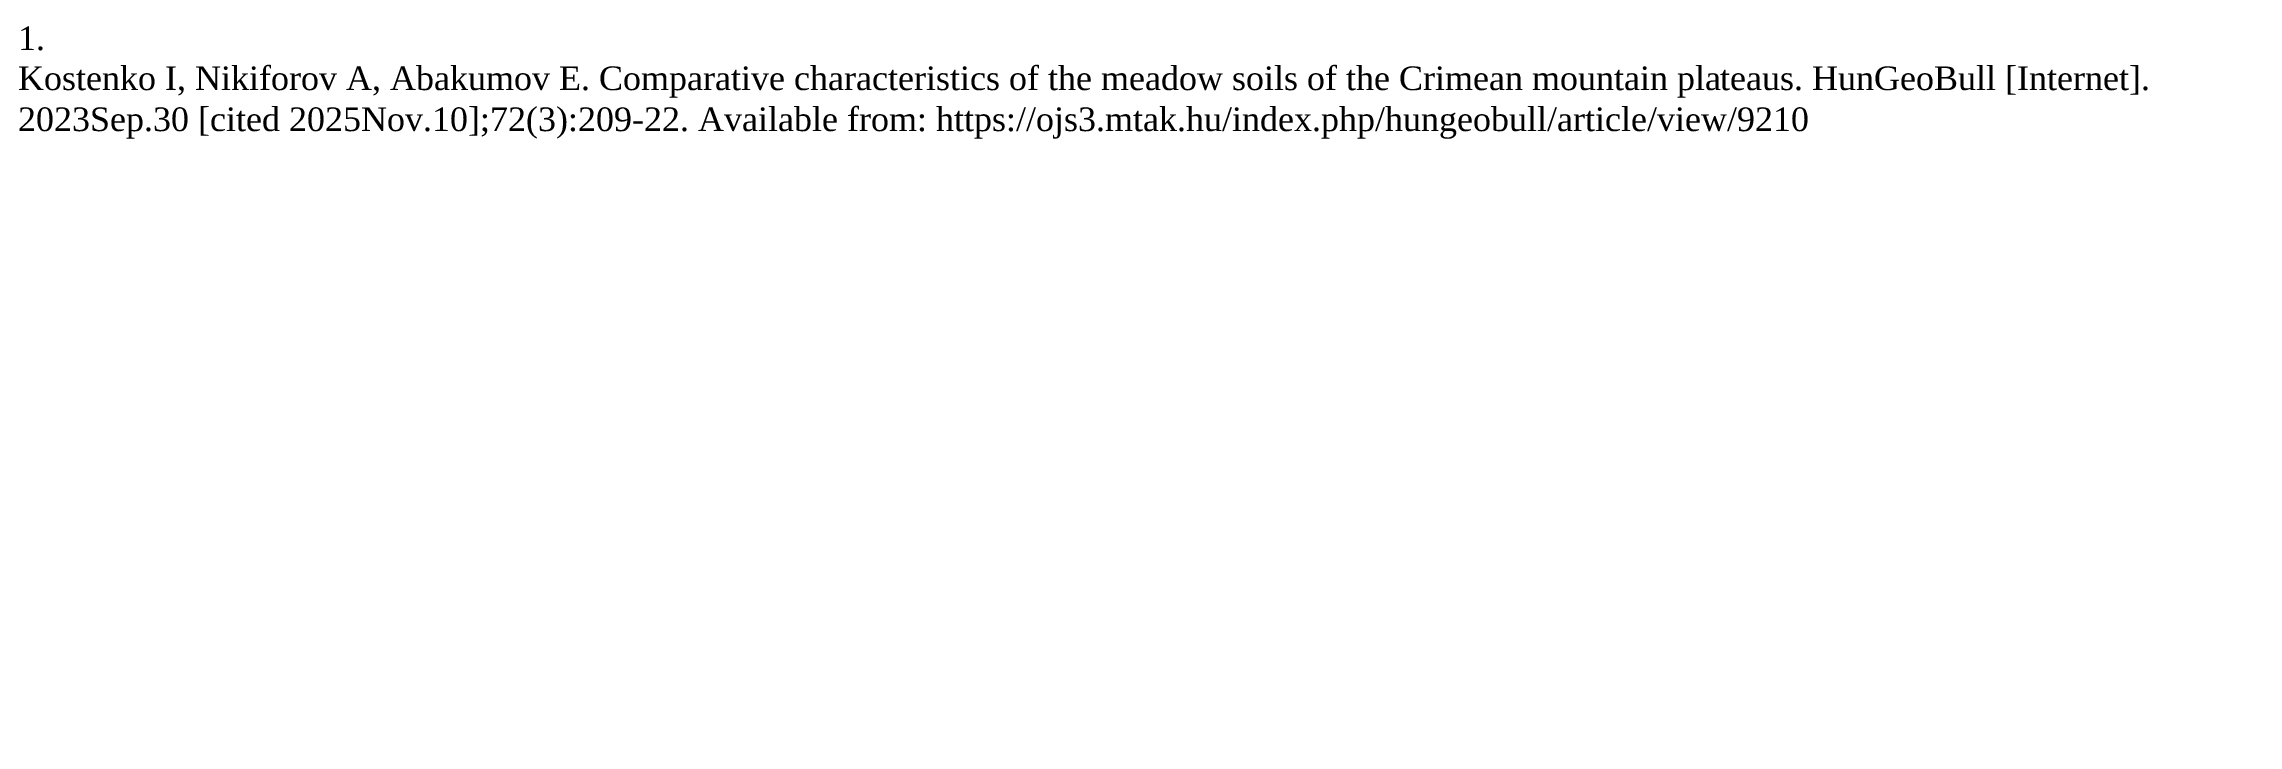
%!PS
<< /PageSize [2282 769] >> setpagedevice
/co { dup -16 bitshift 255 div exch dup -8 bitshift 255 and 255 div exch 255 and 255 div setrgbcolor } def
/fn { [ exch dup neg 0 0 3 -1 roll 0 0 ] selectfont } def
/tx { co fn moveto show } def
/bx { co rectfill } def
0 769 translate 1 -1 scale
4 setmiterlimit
0 0 2282 769 16#FFFFFF bx
(1.) 18 50 /LiberationSerif-Regular 36 16#000000 tx
(Kostenko I, Nikiforov A, Abakumov E. Comparative characteristics of the meadow soils of the Crimean mountain plateaus. HunGeoBull [Internet].) 18 90 /LiberationSerif-Regular 36 16#000000 tx
(2023Sep.30 [cited 2025Nov.10];72\(3\):209-22. Available from: https://ojs3.mtak.hu/index.php/hungeobull/article/view/9210) 18 131 /LiberationSerif-Regular 36 16#000000 tx
showpage
